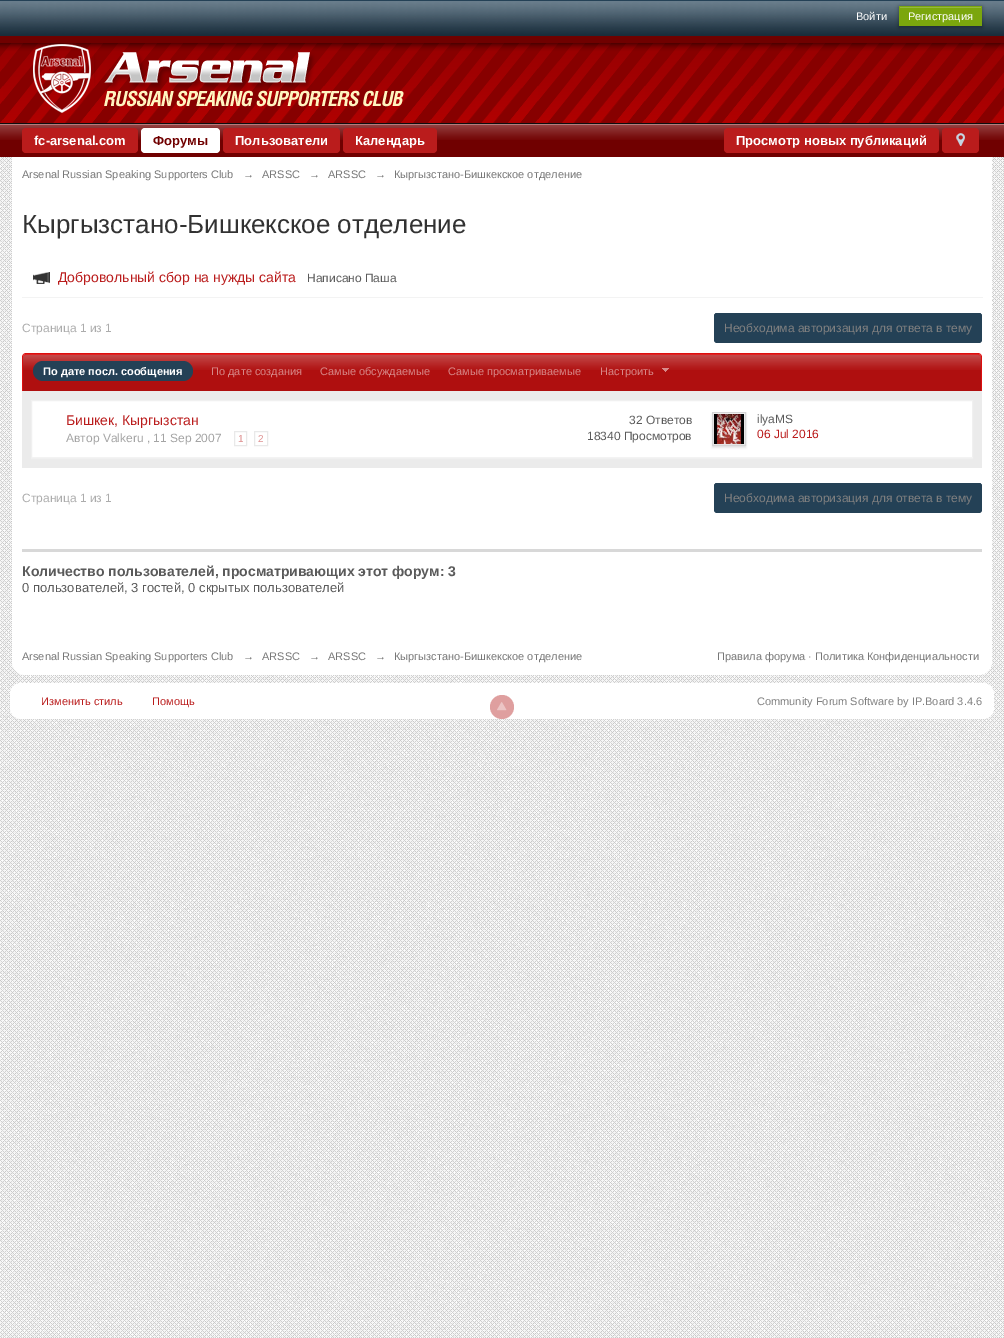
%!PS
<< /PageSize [1004 1338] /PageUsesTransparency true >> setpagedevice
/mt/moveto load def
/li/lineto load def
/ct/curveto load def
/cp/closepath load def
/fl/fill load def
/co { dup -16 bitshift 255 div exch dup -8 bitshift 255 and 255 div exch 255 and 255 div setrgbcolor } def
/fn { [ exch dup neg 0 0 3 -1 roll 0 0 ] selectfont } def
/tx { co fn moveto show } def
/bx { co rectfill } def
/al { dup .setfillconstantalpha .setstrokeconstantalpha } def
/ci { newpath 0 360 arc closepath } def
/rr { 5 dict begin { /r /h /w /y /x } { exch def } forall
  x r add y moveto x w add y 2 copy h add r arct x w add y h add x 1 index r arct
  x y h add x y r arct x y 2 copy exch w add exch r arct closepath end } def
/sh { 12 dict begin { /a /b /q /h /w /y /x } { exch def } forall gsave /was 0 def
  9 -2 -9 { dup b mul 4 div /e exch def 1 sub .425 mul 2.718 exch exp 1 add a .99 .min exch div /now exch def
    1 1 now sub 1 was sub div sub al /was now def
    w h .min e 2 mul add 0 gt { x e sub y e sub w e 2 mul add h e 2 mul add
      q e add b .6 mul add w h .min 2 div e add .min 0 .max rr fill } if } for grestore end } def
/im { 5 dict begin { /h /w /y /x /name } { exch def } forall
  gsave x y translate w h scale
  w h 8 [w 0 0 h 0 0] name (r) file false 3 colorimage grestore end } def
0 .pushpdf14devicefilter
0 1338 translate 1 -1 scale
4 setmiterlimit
0 0 1004 1338 16#FFFFFF bx
(media/1.raw) 0 719 1004 619 im
(media/2.raw) 0 157 1004 562 im
0 0 1004 36 16#244156 bx
(media/3.raw) 0 1 1004 35 im
16#000000 co
899 7 83 20 0 2 .4 sh
899 6 83 20 16#7BA60D bx
900 7 81 1 16#95B83D bx
(media/4.raw) 0 36 1004 87 im
0 123 1004 1 16#0C0E0F bx
(media/5.raw) 33 44 371 69 im
0 124 1004 33 16#700000 bx
(media/6.raw) 0 124 1004 16 im
16#BA1C1C co
22 128 116 25 4 rr fl
16#FFFFFF co
141 128 79 25 4 rr fl
16#BA1C1C co
223 128 117 25 4 rr fl
343 128 94 25 4 rr fl
724 128 215 25 4 rr fl
942 128 37 25 4 rr fl
(media/7.raw) 956 133 9 13 im
16#FFFFFF co
12 157 mt 992 157 li 992 662 li 992 669 986 675 979 675 ct 25 675 li 18 675 12 669 12 662 ct cp fl
22 297 961 1 16#F3F3F3 bx
(media/8.raw) 33 272 17 12 im
16#244156 co
714 313 268 30 3 rr fl
717 314 mt 979 314 li 981 314 982 315 982 317 ct 982 315 981 313 979 313 ct 717 313 li 715 313 714 315 714 317 ct 714 315 715 314 717 314 ct cp fl
16#AF0F0F co
26 354 mt 978 354 li 979.5 354 981 355.5 981 357 ct 981 391 li 23 391 li 23 357 li 23 355.5 24.5 354 26 354 ct cp fl
(media/9.raw) 23 354 958 16 im
16#E02424 co
26 355 mt 978 355 li 980 355 981 356 981 358 ct 981 356 980 354 978 354 ct 26 354 li 24 354 23 356 23 358 ct 23 356 24 355 26 355 ct cp fl
16#DC0F0F co
26 353 mt 978 353 li 980 353 982 355 982 357 ct 982 391 li 22 391 li 22 357 li 22 355 24 353 26 353 ct cp 26 354 mt 978 354 li 980 354 981 355 981 357 ct 981 391 li 23 391 li 23 357 li 23 355 24 354 26 354 ct cp eofill
16#244156 co
33 361 160 20 10 rr fl
(media/10.raw) 662 368 7 4 im
22 391 960 77 16#EBEBEB bx
32 401 940 56 16#FFFFFF bx
16#F0F0F0 co
31.5 400.5 941 58 rectstroke
16#E9E9E9 co
234.5 431.5 12 14 rectstroke
254.5 431.5 13 14 rectstroke
32 457 941 1 16#F3F3F3 bx
16#000000 co
712 414 34 34 0 1 .1 sh
16#D5D5D5 co
712.5 412.5 33 33 rectstroke
(media/11.raw) 714 414 30 30 im
16#244156 co
714 483 268 30 3 rr fl
717 484 mt 979 484 li 981 484 982 485 982 487 ct 982 485 981 483 979 483 ct 717 483 li 715 483 714 485 714 487 ct 714 485 715 484 717 484 ct cp fl
22 549 960 3 16#D8D8D8 bx
16#FFFFFF co
10 683 984 36 11 rr fl
16#DF9F9F co
502 707 12 ci fl
(media/12.raw) 497 702 10 9 im
(Войти) 856 20 /LiberationSans-Regular 11 16#FFFFFF tx
(Регистрация) 908 20 /LiberationSans-Regular 11 16#FFFFFF tx
(fc-arsenal.com) 34 145 /LiberationSans-Bold 13 16#FFFFFF tx
(Форумы) 153 145 /LiberationSans-Bold 13 16#700000 tx
(Пользователи) 235 145 /LiberationSans-Bold 13 16#FFFFFF tx
(Календарь) 355 145 /LiberationSans-Bold 13 16#FFFFFF tx
(Просмотр новых публикаций) 736 145 /LiberationSans-Bold 13 16#FFFFFF tx
(Arsenal Russian Speaking Supporters Club) 22 178 /LiberationSans-Regular 11 16#777777 tx
(→) 243 178 /LiberationSans-Regular 11 16#777777 tx
(ARSSC) 262 178 /LiberationSans-Regular 11 16#777777 tx
(→) 309 178 /LiberationSans-Regular 11 16#777777 tx
(ARSSC) 328 178 /LiberationSans-Regular 11 16#777777 tx
(→) 375 178 /LiberationSans-Regular 11 16#777777 tx
(Кыргызстано-Бишкекское отделение) 394 178 /LiberationSans-Regular 11 16#777777 tx
(Кыргызстано-Бишкекское отделение) 22 233 /LiberationSans-Regular 26 16#323232 tx
(Добровольный сбор на нужды сайта) 58 282 /LiberationSans-Regular 14 16#BA1C1C tx
(Написано Паша) 307 282 /LiberationSans-Regular 12 16#5A5A5A tx
(Страница 1 из 1) 22 332 /LiberationSans-Regular 12 16#ACACAC tx
(Необходима авторизация для ответа в тему) 724 332 /LiberationSans-Regular 12 16#7F7F7F tx
(По дате посл. сообщения) 43 375 /LiberationSans-Bold 11 16#FFFFFF tx
(По дате создания) 211 375 /LiberationSans-Regular 11 16#D78888 tx
(Самые обсуждаемые) 320 375 /LiberationSans-Regular 11 16#D78888 tx
(Самые просматриваемые) 448 375 /LiberationSans-Regular 11 16#D78888 tx
(Настроить) 600 375 /LiberationSans-Regular 11 16#D78888 tx
(Бишкек, Кыргызстан) 66 425 /LiberationSans-Regular 14 16#BA1C1C tx
(Автор Valkeru , 11 Sep 2007) 66 442 /LiberationSans-Regular 12 16#A4A4A4 tx
(1) 238 442 /LiberationSans-Regular 10 16#DD8E8E tx
(2) 258 442 /LiberationSans-Regular 10 16#DD8E8E tx
(32 Ответов) 629 424 /LiberationSans-Regular 12 16#5A5A5A tx
(18340 Просмотров) 587 440 /LiberationSans-Regular 12 16#5A5A5A tx
(ilyaMS) 757 423 /LiberationSans-Regular 12 16#5A5A5A tx
(06 Jul 2016) 757 438 /LiberationSans-Regular 12 16#BA1C1C tx
(Страница 1 из 1) 22 502 /LiberationSans-Regular 12 16#ACACAC tx
(Необходима авторизация для ответа в тему) 724 502 /LiberationSans-Regular 12 16#7F7F7F tx
(Количество пользователей, просматривающих этот форум: 3) 22 576 /LiberationSans-Bold 14 16#5A5A5A tx
(0 пользователей, 3 гостей, 0 скрытых пользователей) 22 592 /LiberationSans-Regular 13 16#5A5A5A tx
(Arsenal Russian Speaking Supporters Club) 22 660 /LiberationSans-Regular 11 16#777777 tx
(→) 243 660 /LiberationSans-Regular 11 16#777777 tx
(ARSSC) 262 660 /LiberationSans-Regular 11 16#777777 tx
(→) 309 660 /LiberationSans-Regular 11 16#777777 tx
(ARSSC) 328 660 /LiberationSans-Regular 11 16#777777 tx
(→) 375 660 /LiberationSans-Regular 11 16#777777 tx
(Кыргызстано-Бишкекское отделение) 394 660 /LiberationSans-Regular 11 16#777777 tx
(Правила форума ·) 717 660 /LiberationSans-Regular 11 16#777777 tx
(Политика Конфиденциальности) 815 660 /LiberationSans-Regular 11 16#777777 tx
(Изменить стиль) 41 705 /LiberationSans-Regular 11 16#BA1C1C tx
(Помощь) 152 705 /LiberationSans-Regular 11 16#BA1C1C tx
(Community Forum Software by IP.Board 3.4.6) 757 705 /LiberationSans-Regular 11 16#7F7F7F tx
.poppdf14devicefilter showpage
